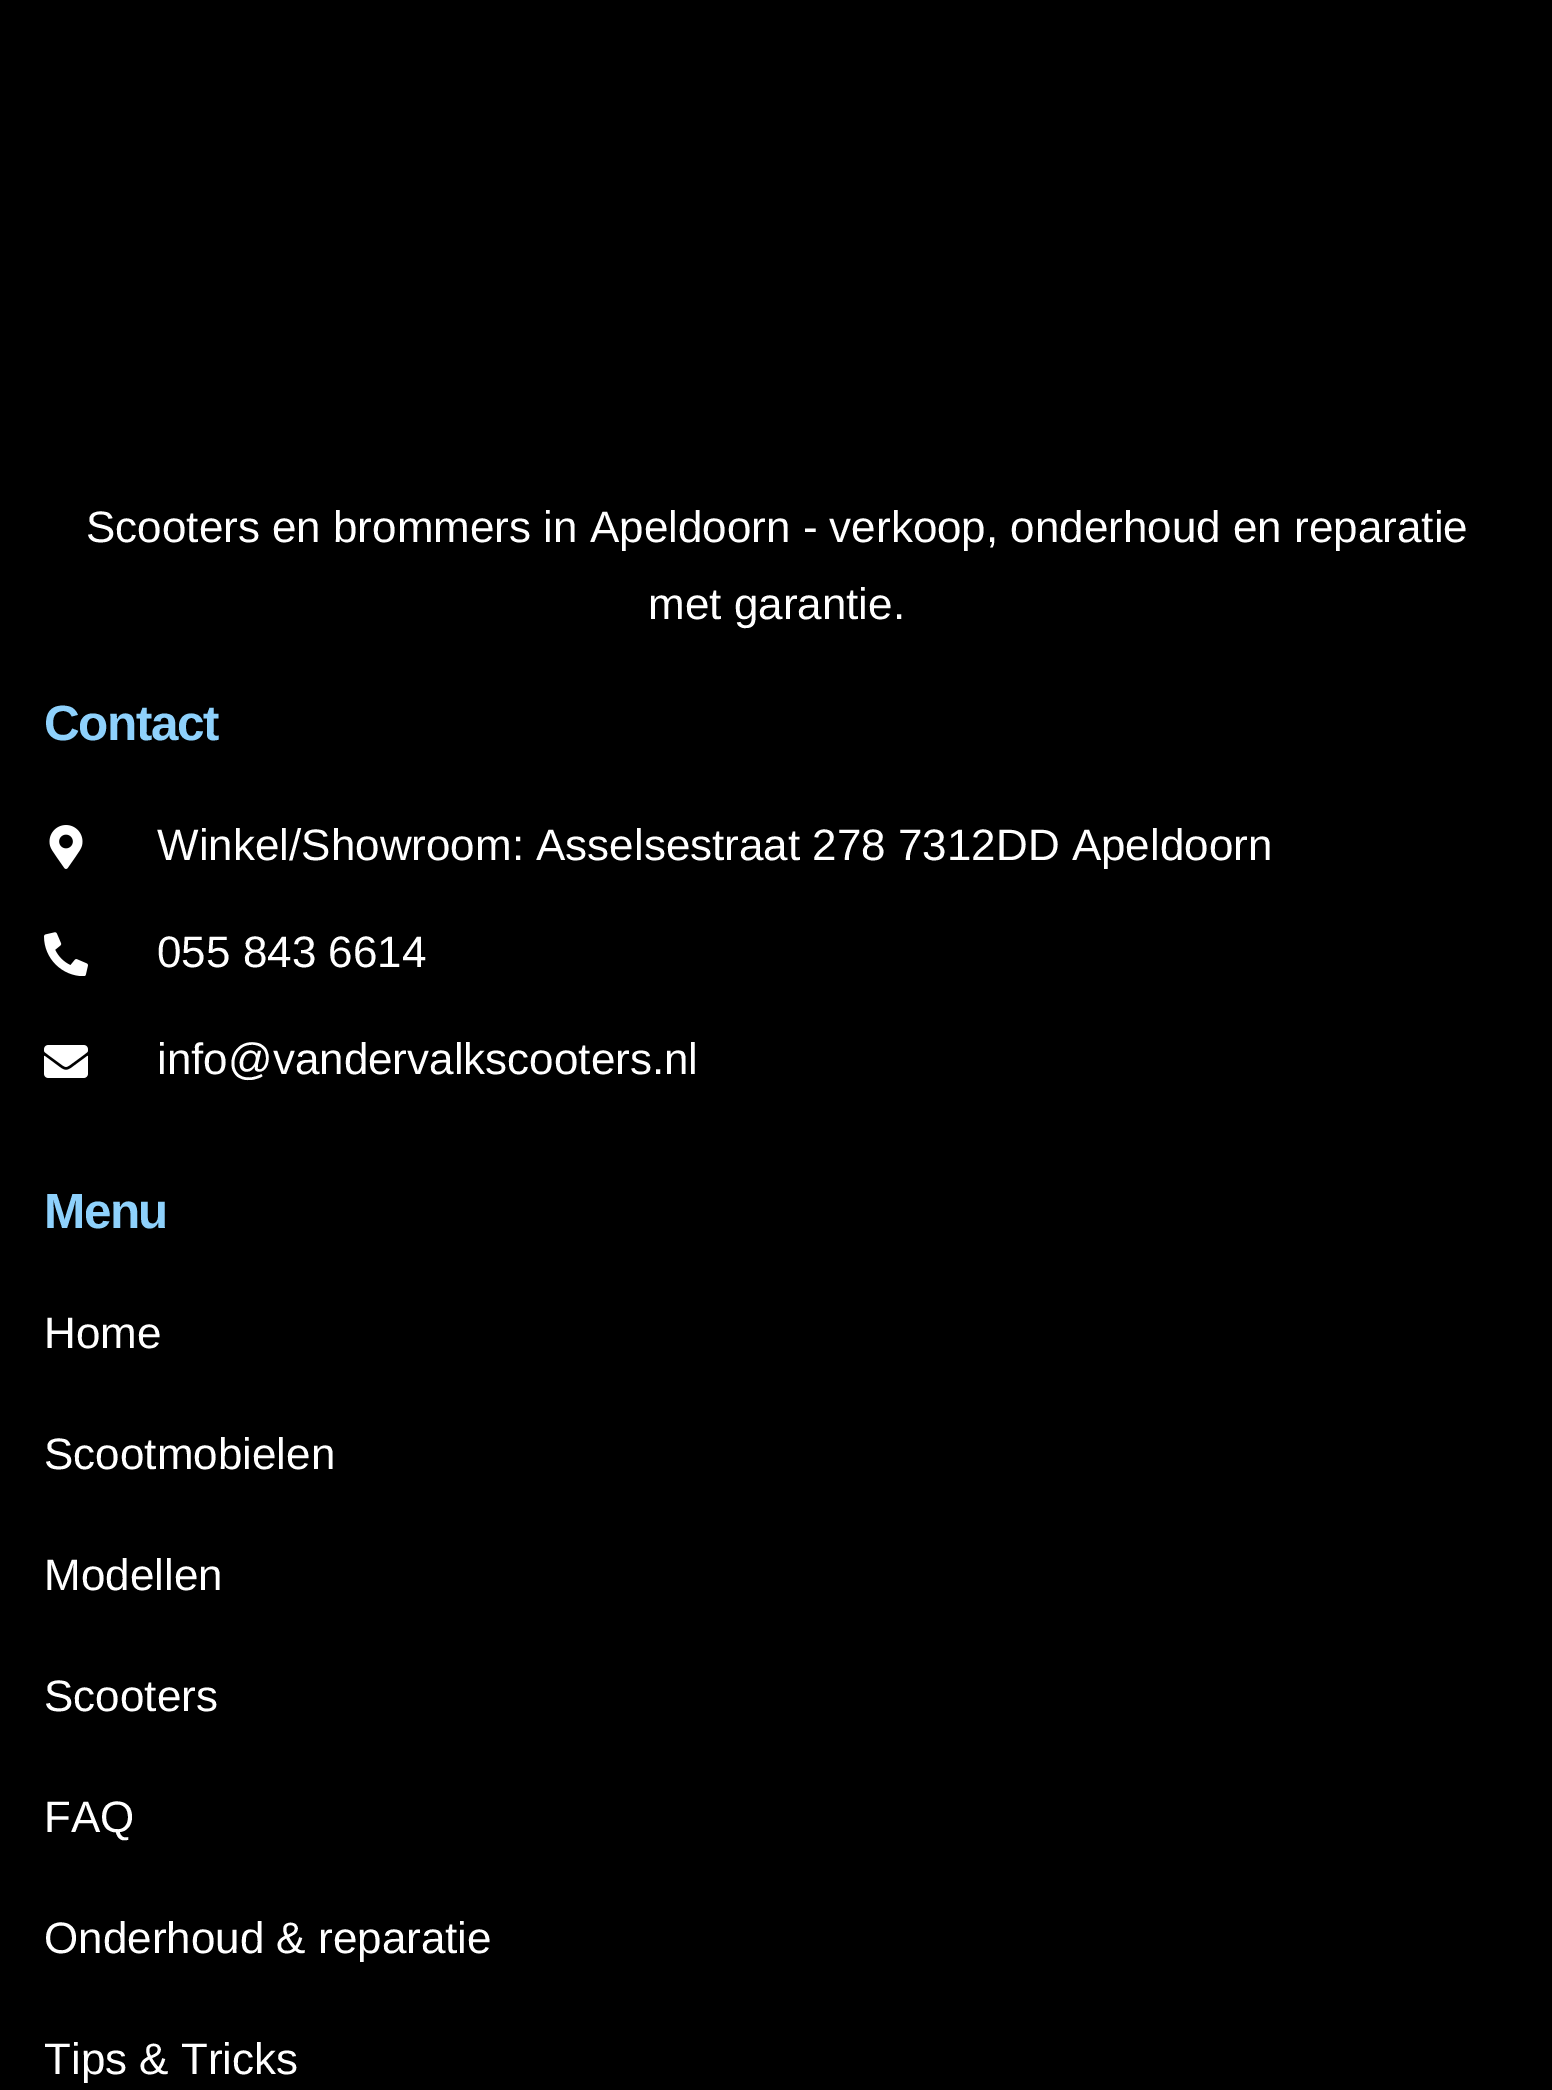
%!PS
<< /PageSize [1552 2090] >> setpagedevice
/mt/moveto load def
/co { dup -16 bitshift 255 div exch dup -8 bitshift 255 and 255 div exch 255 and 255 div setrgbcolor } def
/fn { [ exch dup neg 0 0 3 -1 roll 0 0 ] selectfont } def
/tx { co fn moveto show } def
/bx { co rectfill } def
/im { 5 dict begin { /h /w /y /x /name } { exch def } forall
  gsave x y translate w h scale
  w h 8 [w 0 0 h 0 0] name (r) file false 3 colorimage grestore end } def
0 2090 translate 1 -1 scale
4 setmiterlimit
0 0 1552 2090 16#000000 bx
(media/1.raw) 49 825 34 44 im
(media/2.raw) 44 932 44 44 im
(media/3.raw) 44 1045 44 33 im
(Scooters en brommers in Apeldoorn - verkoop, onderhoud en reparatie) 86 542 /LiberationSans-Regular 44 16#FFFFFF tx
(met garantie.) 648 619 /LiberationSans-Regular 44 16#FFFFFF tx
/LiberationSans-Bold 49.5 fn
16#8ED1FC co
44 740 mt -1.5 0 (Contact) ashow
(Winkel/Showroom: Asselsestraat 278 7312DD Apeldoorn) 157 860 /LiberationSans-Regular 44 16#FFFFFF tx
(055 843 6614) 157 967 /LiberationSans-Regular 44 16#FFFFFF tx
(info@vandervalkscooters.nl) 157 1074 /LiberationSans-Regular 44 16#FFFFFF tx
/LiberationSans-Bold 49.5 fn
16#8ED1FC co
44 1228 mt -1.5 0 (Menu) ashow
(Home) 44 1348 /LiberationSans-Regular 44 16#FFFFFF tx
(Scootmobielen) 44 1469 /LiberationSans-Regular 44 16#FFFFFF tx
(Modellen) 44 1590 /LiberationSans-Regular 44 16#FFFFFF tx
(Scooters) 44 1711 /LiberationSans-Regular 44 16#FFFFFF tx
(FAQ) 44 1832 /LiberationSans-Regular 44 16#FFFFFF tx
(Onderhoud & reparatie) 44 1953 /LiberationSans-Regular 44 16#FFFFFF tx
(Tips & Tricks) 44 2074 /LiberationSans-Regular 44 16#FFFFFF tx
showpage
